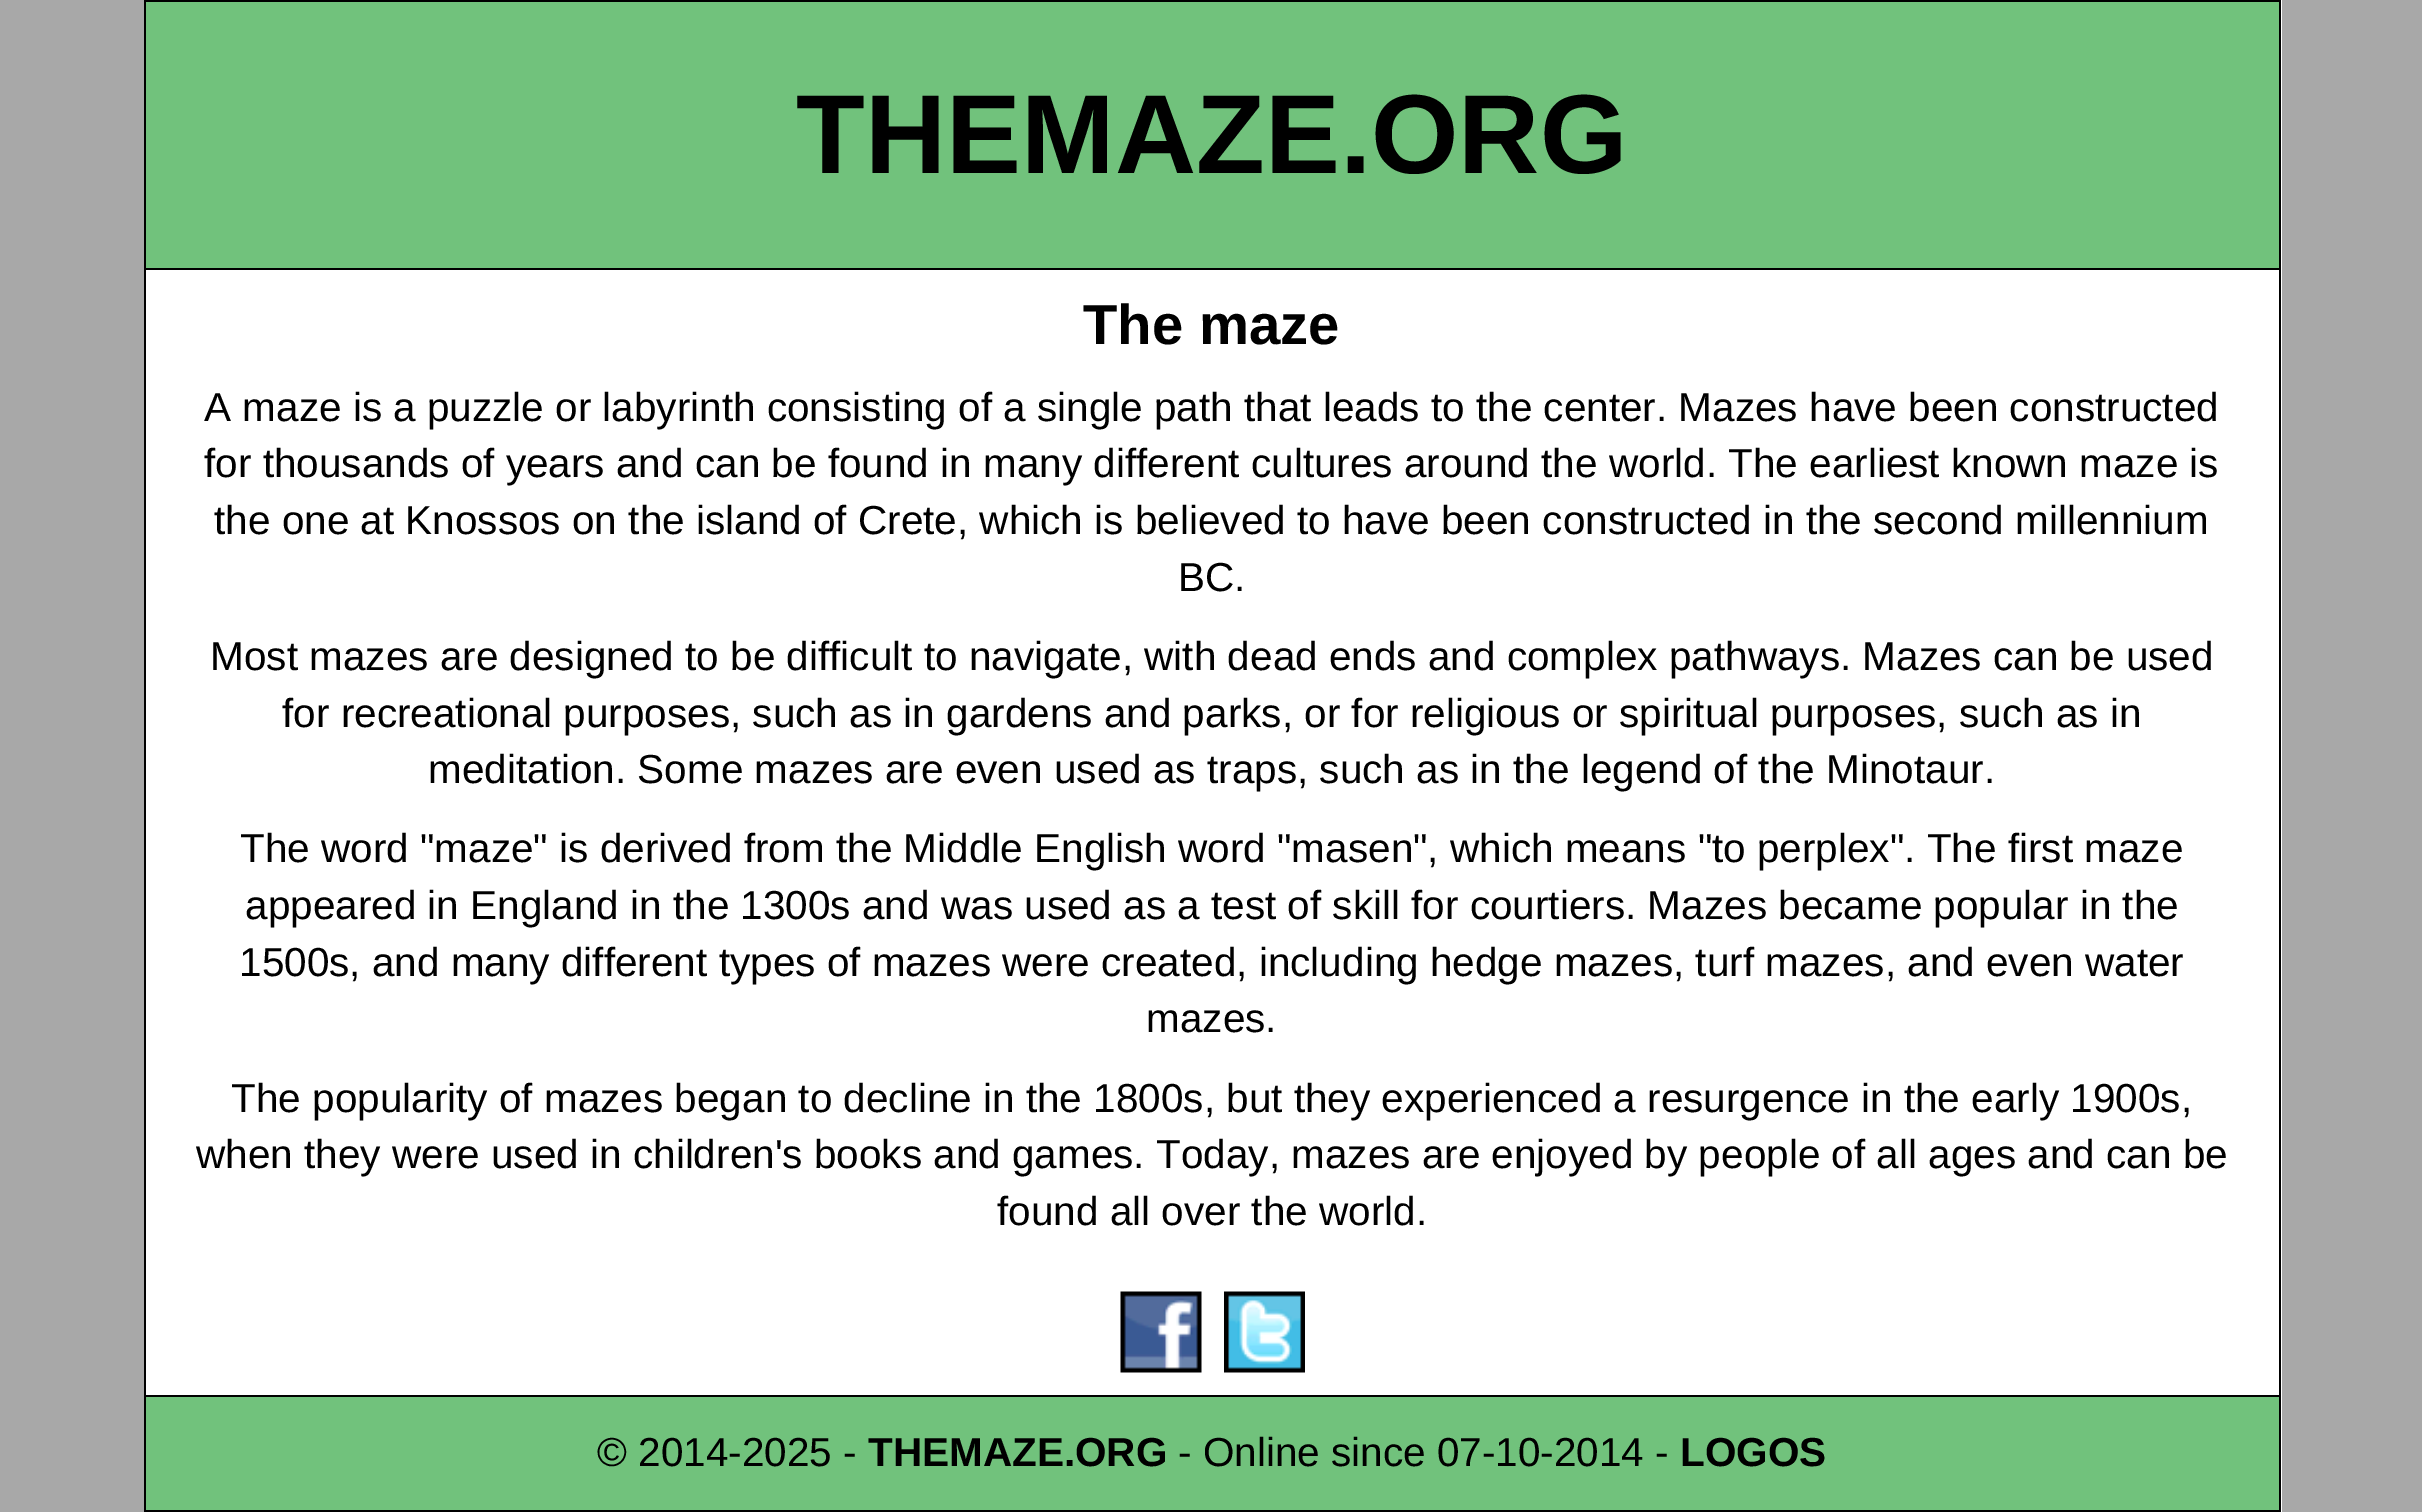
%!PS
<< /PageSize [2422 1512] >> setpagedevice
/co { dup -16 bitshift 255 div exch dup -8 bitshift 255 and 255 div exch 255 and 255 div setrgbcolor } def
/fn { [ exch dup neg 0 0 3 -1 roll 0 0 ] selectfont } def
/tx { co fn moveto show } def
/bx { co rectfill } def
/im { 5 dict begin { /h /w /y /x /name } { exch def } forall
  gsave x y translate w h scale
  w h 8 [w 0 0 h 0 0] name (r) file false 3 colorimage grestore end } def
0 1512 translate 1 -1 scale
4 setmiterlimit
0 0 2422 1512 16#A8A8A8 bx
146 0 2136 1512 16#FFFFFF bx
144 0 2 1512 16#000000 bx
146 0 2133 2 16#000000 bx
146 2 2133 266 16#71C27C bx
146 268 2133 2 16#000000 bx
(media/1.raw) 1120 1291 82 82 im
(media/2.raw) 1224 1291 81 82 im
146 1395 2133 2 16#000000 bx
146 1397 2133 113 16#71C27C bx
146 1510 2133 2 16#000000 bx
2279 0 2 1512 16#000000 bx
(THEMAZE.ORG) 796 173 /LiberationSans-Bold 112.5 16#000000 tx
(The maze) 1083 344 /LiberationSans-Bold 56.25 16#000000 tx
(A maze is a puzzle or labyrinth consisting of a single path that leads to the center. Mazes have been constructed) 204 421 /LiberationSans-Regular 40.5 16#000000 tx
(for thousands of years and can be found in many different cultures around the world. The earliest known maze is) 204 477 /LiberationSans-Regular 40.5 16#000000 tx
(the one at Knossos on the island of Crete, which is believed to have been constructed in the second millennium) 214 534 /LiberationSans-Regular 40.5 16#000000 tx
(BC.) 1178 591 /LiberationSans-Regular 40.5 16#000000 tx
(Most mazes are designed to be difficult to navigate, with dead ends and complex pathways. Mazes can be used) 210 670 /LiberationSans-Regular 40.5 16#000000 tx
(for recreational purposes, such as in gardens and parks, or for religious or spiritual purposes, such as in) 282 727 /LiberationSans-Regular 40.5 16#000000 tx
(meditation. Some mazes are even used as traps, such as in the legend of the Minotaur.) 428 783 /LiberationSans-Regular 40.5 16#000000 tx
(The word "maze" is derived from the Middle English word "masen", which means "to perplex". The first maze) 240 862 /LiberationSans-Regular 40.5 16#000000 tx
(appeared in England in the 1300s and was used as a test of skill for courtiers. Mazes became popular in the) 245 919 /LiberationSans-Regular 40.5 16#000000 tx
(1500s, and many different types of mazes were created, including hedge mazes, turf mazes, and even water) 239 976 /LiberationSans-Regular 40.5 16#000000 tx
(mazes.) 1146 1032 /LiberationSans-Regular 40.5 16#000000 tx
(The popularity of mazes began to decline in the 1800s, but they experienced a resurgence in the early 1900s,) 231 1112 /LiberationSans-Regular 40.5 16#000000 tx
(when they were used in children's books and games. Today, mazes are enjoyed by people of all ages and can be) 196 1168 /LiberationSans-Regular 40.5 16#000000 tx
(found all over the world.) 997 1225 /LiberationSans-Regular 40.5 16#000000 tx
(© 2014-2025 -) 597 1466 /LiberationSans-Regular 40.5 16#000000 tx
(THEMAZE.ORG) 868 1466 /LiberationSans-Bold 40.5 16#000000 tx
(- Online since 07-10-2014 -) 1178 1466 /LiberationSans-Regular 40.5 16#000000 tx
(LOGOS) 1680 1466 /LiberationSans-Bold 40.5 16#000000 tx
showpage
